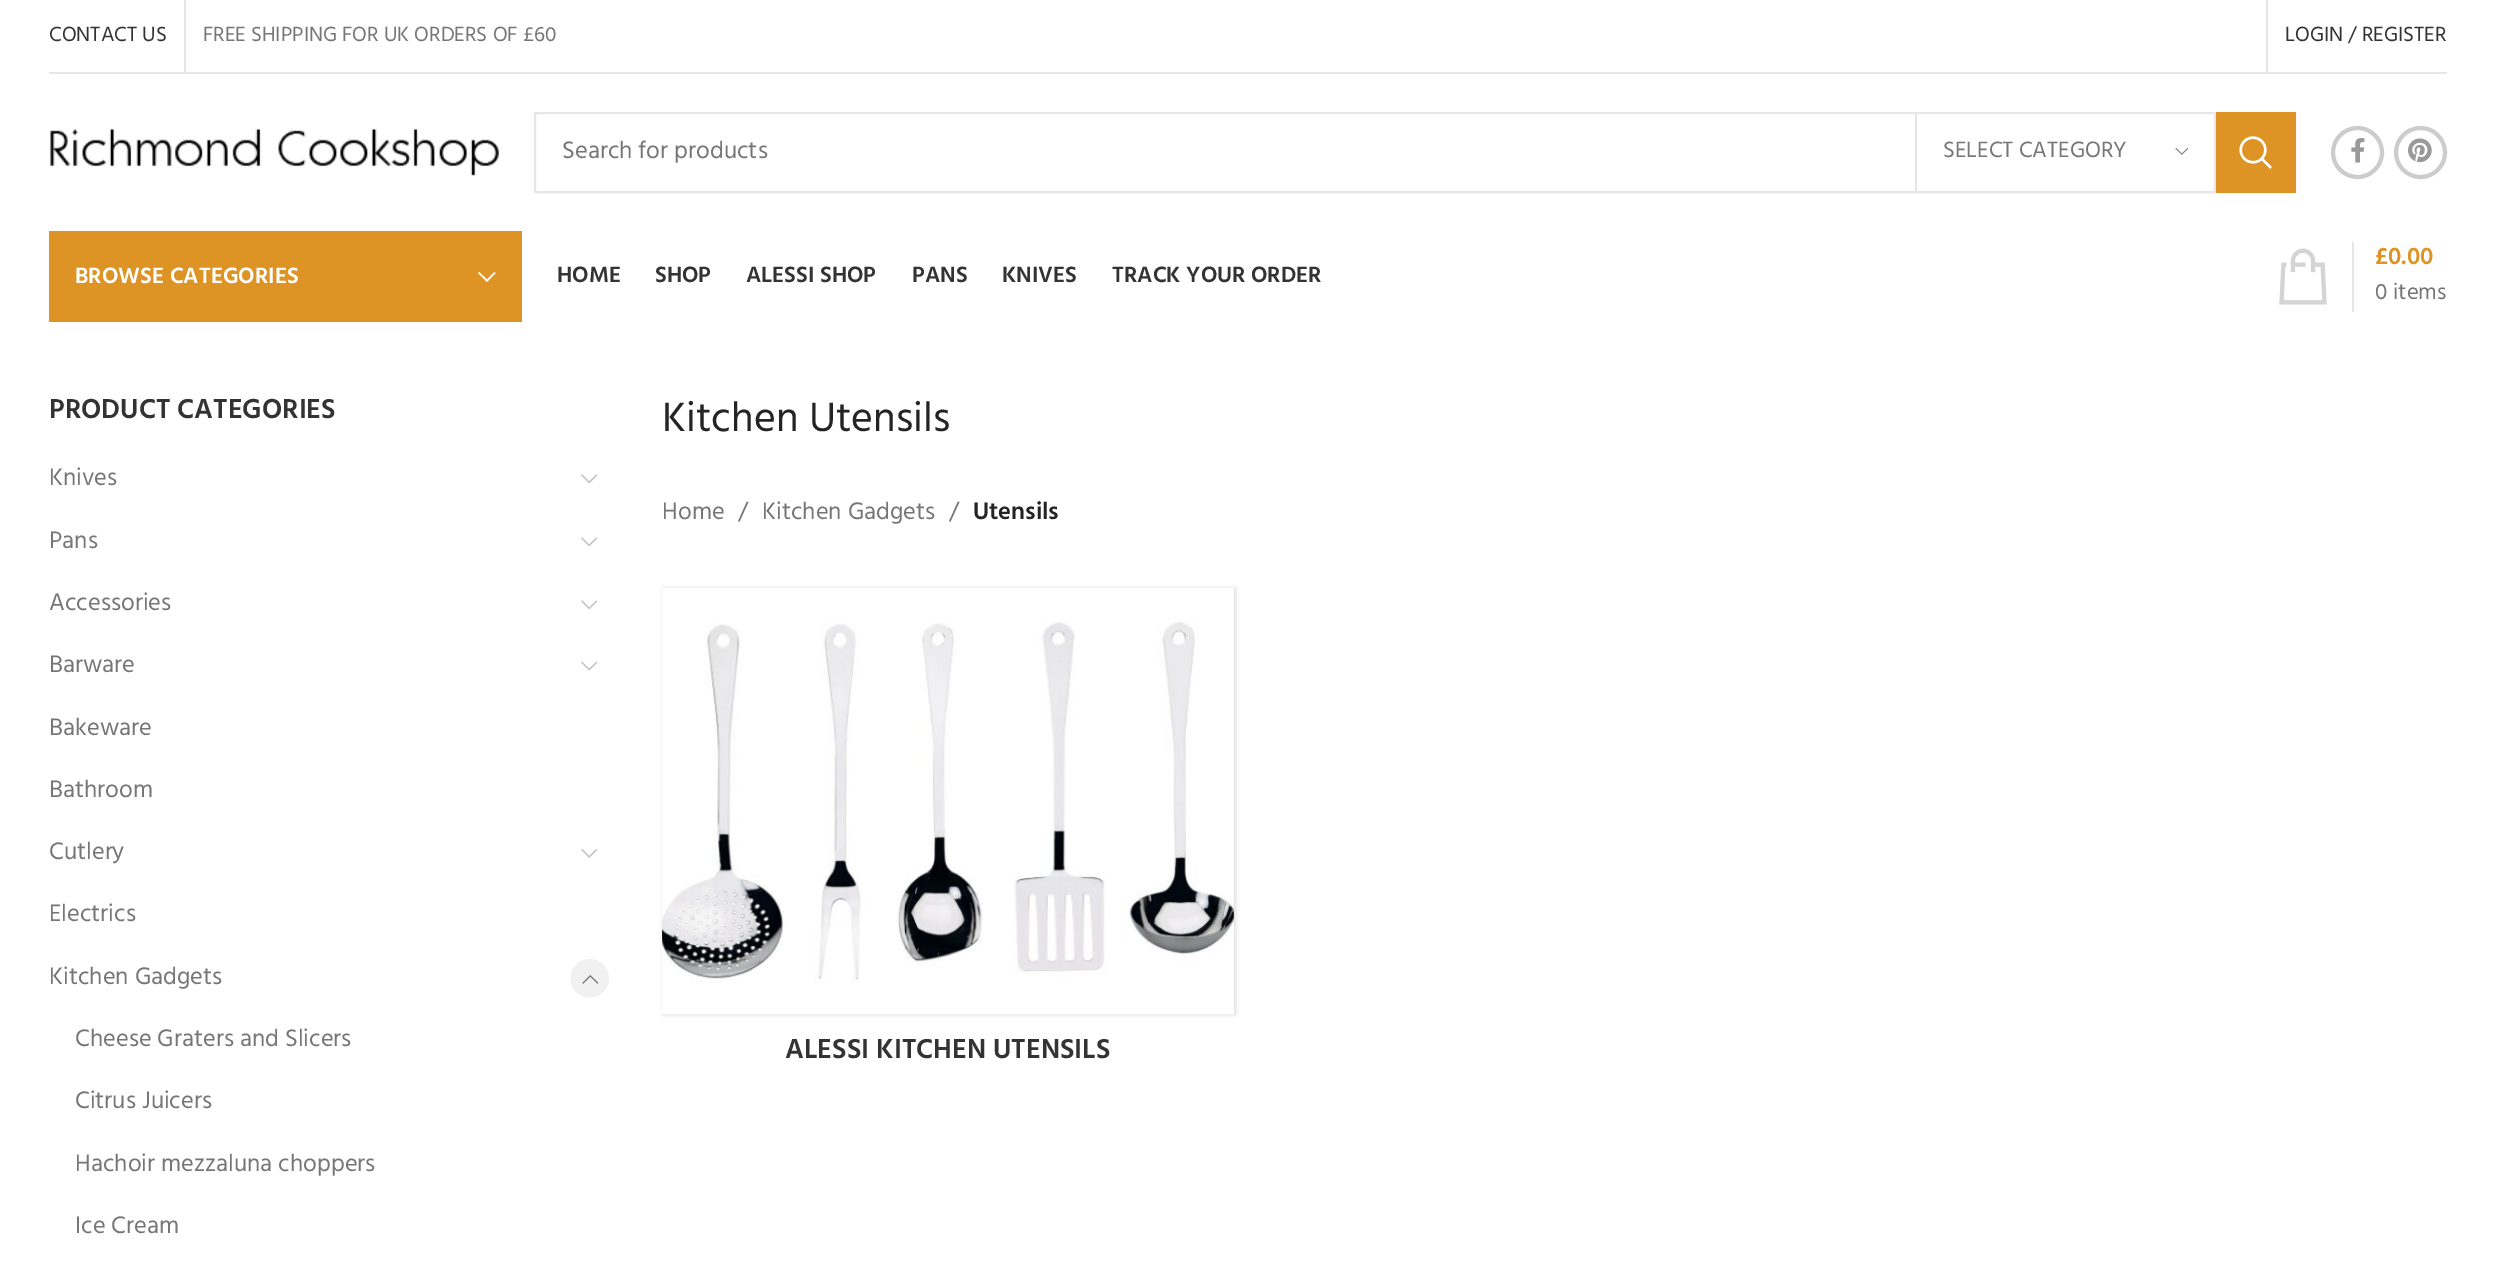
%!PS
<< /PageSize [2494 1284] /PageUsesTransparency true >> setpagedevice
/mt/moveto load def
/li/lineto load def
/ct/curveto load def
/cp/closepath load def
/fl/fill load def
/st/stroke load def
/lw/setlinewidth load def
/co { dup -16 bitshift 255 div exch dup -8 bitshift 255 and 255 div exch 255 and 255 div setrgbcolor } def
/fn { [ exch dup neg 0 0 3 -1 roll 0 0 ] selectfont } def
/tx { co fn moveto show } def
/bx { co rectfill } def
/al { dup .setfillconstantalpha .setstrokeconstantalpha } def
/ci { newpath 0 360 arc closepath } def
/rr { 5 dict begin { /r /h /w /y /x } { exch def } forall
  x r add y moveto x w add y 2 copy h add r arct x w add y h add x 1 index r arct
  x y h add x y r arct x y 2 copy exch w add exch r arct closepath end } def
/sh { 12 dict begin { /a /b /q /h /w /y /x } { exch def } forall gsave /was 0 def
  9 -2 -9 { dup b mul 4 div /e exch def 1 sub .425 mul 2.718 exch exp 1 add a .99 .min exch div /now exch def
    1 1 now sub 1 was sub div sub al /was now def
    w h .min e 2 mul add 0 gt { x e sub y e sub w e 2 mul add h e 2 mul add
      q e add b .6 mul add w h .min 2 div e add .min 0 .max rr fill } if } for grestore end } def
/im { 5 dict begin { /h /w /y /x /name } { exch def } forall
  gsave x y translate w h scale
  w h 8 [w 0 0 h 0 0] name (r) file false 3 colorimage grestore end } def
0 .pushpdf14devicefilter
0 1284 translate 1 -1 scale
4 setmiterlimit
0 0 2494 1284 16#FFFFFF bx
49 72 2398 2 16#E6E6E6 bx
184 0 2 72 16#E4E4E4 bx
2266 0 2 72 16#E4E4E4 bx
(media/1.raw) 50 128 449 48 im
16#E6E6E6 co
2 lw
535 113 1760 79 rectstroke
2214 114 2 77 16#E6E6E6 bx
1915 114 2 77 16#E6E6E6 bx
(media/2.raw) 2175 147 14 8 im
2216 112 80 81 16#DD9425 bx
(media/3.raw) 2239 136 33 33 im
16#CCCCCC co
4 lw
2357.5 152.5 24.5 ci st
(media/4.raw) 2351 138 14 25 im
2420.5 152.5 24.5 ci st
(media/5.raw) 2408 138 24 25 im
49 231 473 91 16#DD9425 bx
16#FFFFFF co
494.5 272 mt 487 279.5 li 479 272 li 478 273 li 487 282 li 495.5 273 li cp fl
(media/6.raw) 2279 248 48 57 im
2352 242 2 70 16#E6E6E6 bx
(media/7.raw) 581 474 17 10 im
(media/7.raw) 581 537 17 10 im
(media/7.raw) 581 600 17 10 im
(media/8.raw) 581 661 17 10 im
(media/9.raw) 581 849 17 9 im
16#F1F1F1 co
590 997.5 mt 579 997.5 570.5 989 570.5 978.5 ct 570.5 968 579 959 590 959 ct 600.5 959 609 968 609 978.5 ct 609 989 600.5 997.5 590 997.5 ct cp fl
(media/10.raw) 582 975 17 9 im
16#000000 co
663 588 573 427 0 2 .12 sh
(media/11.raw) 662 588 572 426 im
(CONTACT US) 49 41 /Hind-Regular 21 16#333333 tx
(FREE SHIPPING FOR UK ORDERS OF £60) 203 41 /Hind-Regular 21 16#767676 tx
(LOGIN / REGISTER) 2285 41 /Hind-Regular 21 16#333333 tx
(Search for products) 562 158 /Hind-Regular 24.5 16#767676 tx
(SELECT CATEGORY) 1943 157 /Hind-Regular 22.75 16#767676 tx
(BROWSE CATEGORIES) 75 283 /Hind-SemiBold 22.75 16#FFFFFF tx
(HOME) 557 282 /Hind-SemiBold 22.75 16#333333 tx
(SHOP) 655 282 /Hind-SemiBold 22.75 16#333333 tx
(ALESSI SHOP) 746 282 /Hind-SemiBold 22.75 16#333333 tx
(PANS) 912 282 /Hind-SemiBold 22.75 16#333333 tx
(KNIVES) 1002 282 /Hind-SemiBold 22.75 16#333333 tx
(TRACK YOUR ORDER) 1112 282 /Hind-SemiBold 22.75 16#333333 tx
(£0.00) 2375 264 /Hind-SemiBold 24.5 16#DD9425 tx
(0 items) 2375 299 /Hind-Regular 22.75 16#767676 tx
(PRODUCT CATEGORIES) 49 418 /Hind-SemiBold 28 16#333333 tx
(Knives) 49 485 /Hind-Regular 24.5 16#767676 tx
(Pans) 49 548 /Hind-Regular 24.5 16#767676 tx
(Accessories) 49 610 /Hind-Regular 24.5 16#767676 tx
(Barware) 49 672 /Hind-Regular 24.5 16#767676 tx
(Bakeware) 49 735 /Hind-Regular 24.5 16#767676 tx
(Bathroom) 49 797 /Hind-Regular 24.5 16#767676 tx
(Cutlery) 49 859 /Hind-Regular 24.5 16#767676 tx
(Electrics) 49 921 /Hind-Regular 24.5 16#767676 tx
(Kitchen Gadgets) 49 984 /Hind-Regular 24.5 16#767676 tx
(Cheese Graters and Slicers) 75 1046 /Hind-Regular 24.5 16#767676 tx
(Citrus Juicers) 75 1108 /Hind-Regular 24.5 16#767676 tx
(Hachoir mezzaluna choppers) 75 1171 /Hind-Regular 24.5 16#767676 tx
(Ice Cream) 75 1233 /Hind-Regular 24.5 16#767676 tx
(Kitchen Utensils) 662 431 /Hind-Regular 42 16#242424 tx
(Home) 662 519 /Hind-Regular 24.5 16#767676 tx
(/) 738 519 /Hind-Regular 24.5 16#767676 tx
(Kitchen Gadgets) 762 519 /Hind-Regular 24.5 16#767676 tx
(/) 949 519 /Hind-Regular 24.5 16#767676 tx
(Utensils) 973 519 /Hind-SemiBold 24.5 16#242424 tx
(ALESSI KITCHEN UTENSILS) 785 1058 /Hind-SemiBold 28 16#333333 tx
.poppdf14devicefilter showpage
